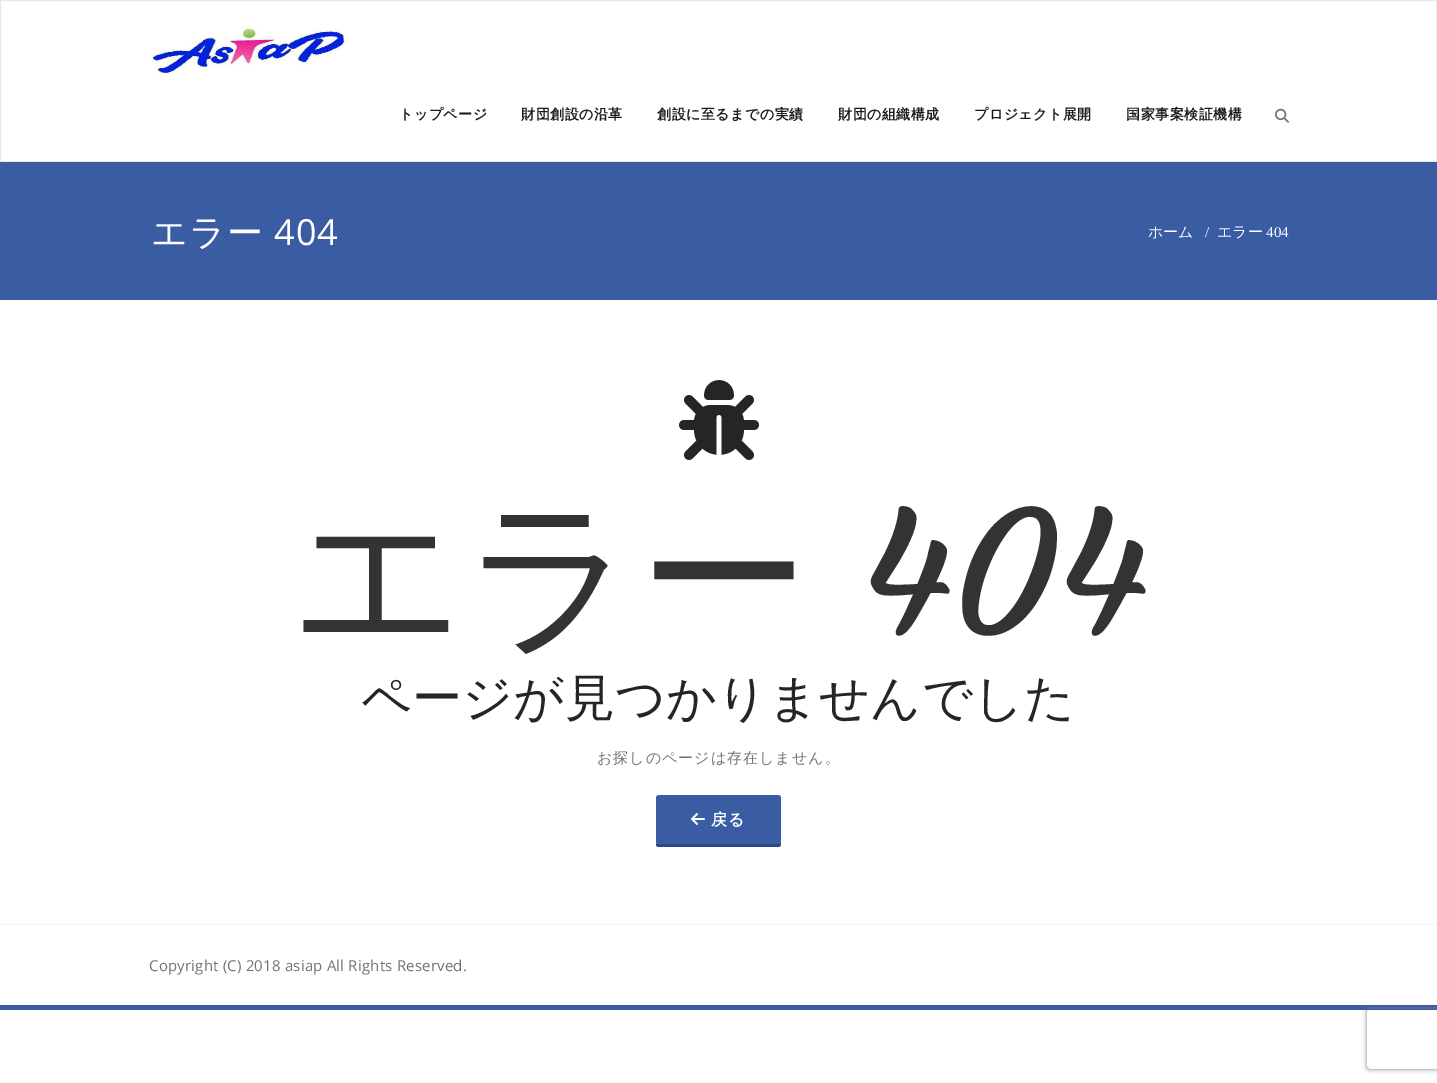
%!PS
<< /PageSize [1437 1083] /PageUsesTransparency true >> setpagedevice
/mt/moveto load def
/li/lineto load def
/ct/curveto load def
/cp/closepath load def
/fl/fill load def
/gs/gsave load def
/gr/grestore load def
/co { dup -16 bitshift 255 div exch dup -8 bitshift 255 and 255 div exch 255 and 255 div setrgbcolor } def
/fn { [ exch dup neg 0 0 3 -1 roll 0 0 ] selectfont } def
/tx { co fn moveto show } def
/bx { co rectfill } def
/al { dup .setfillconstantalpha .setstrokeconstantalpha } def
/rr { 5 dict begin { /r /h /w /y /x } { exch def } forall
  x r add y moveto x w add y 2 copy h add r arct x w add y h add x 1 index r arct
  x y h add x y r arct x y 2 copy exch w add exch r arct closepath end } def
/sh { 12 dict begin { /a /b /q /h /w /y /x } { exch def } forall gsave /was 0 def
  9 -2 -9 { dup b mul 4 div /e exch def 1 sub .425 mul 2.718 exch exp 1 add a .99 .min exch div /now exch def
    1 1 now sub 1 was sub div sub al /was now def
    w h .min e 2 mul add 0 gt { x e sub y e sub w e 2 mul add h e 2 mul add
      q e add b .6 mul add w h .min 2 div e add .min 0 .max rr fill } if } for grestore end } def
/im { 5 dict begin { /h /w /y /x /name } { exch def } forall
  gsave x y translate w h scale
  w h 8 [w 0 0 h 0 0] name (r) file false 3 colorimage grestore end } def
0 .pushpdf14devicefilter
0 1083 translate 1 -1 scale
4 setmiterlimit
0 0 1437 1083 16#FFFFFF bx
16#E7E7E7 co
.5 .5 1436 161 rectstroke
(media/1.raw) 149 26 199 48 im
(media/2.raw) 1275 108 14 15 im
0 162 1437 138 16#395CA3 bx
(media/3.raw) 679 380 80 80 im
16#2A4987 co
656 841 mt 656 844 li 656 846 657 847 659 847 ct 778 847 li 780 847 781 846 781 844 ct 781 841 li 781 843 780 844 778 844 ct 659 844 li 657 844 656 843 656 841 ct cp fl
16#395CA3 co
656 795 125 49 3 rr fl
(media/4.raw) 691 813 14 12 im
0 924 1437 1 16#F4F4F4 bx
0 1005 1437 5 16#395CA3 bx
gs
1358 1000 mt 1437 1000 li 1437 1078 li 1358 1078 li cp 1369 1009 mt 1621 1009 li 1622 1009 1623 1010 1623 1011 ct 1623 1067 li 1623 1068 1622 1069 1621 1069 ct 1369 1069 li 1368 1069 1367 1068 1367 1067 ct 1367 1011 li 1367 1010 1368 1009 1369 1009 ct cp eoclip newpath
16#808080 co
1367 1009 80 60 2 2.5 1 sh
gr
/WenQuanYiZenHei-Bold 14 fn
16#1B1B1B co
399 119 mt .5 0 (トップページ) ashow
521 119 mt .5 0 (財団創設の沿革) ashow
657 119 mt .5 0 (創設に至るまでの実績) ashow
838 119 mt .5 0 (財団の組織構成) ashow
974 119 mt .5 0 (プロジェクト展開) ashow
1126 119 mt .5 0 (国家事案検証機構) ashow
/WenQuanYiZenHei-Medium 36 fn
16#FFFFFF co
151 245 mt 1 0 (エラー) ashow
/OpenSans-Regular 36 fn
274 245 mt 1 0 (404) ashow
(ホーム) 1148 237 /WenQuanYiZenHei-Medium 15 16#FFFFFF tx
(/) 1205 237 /LiberationSerif-Regular 15 16#FFFFFF tx
(エラー) 1217 237 /WenQuanYiZenHei-Medium 15 16#FFFFFF tx
(404) 1266 237 /LiberationSerif-Regular 15 16#FFFFFF tx
(エラー) 291 635 /WenQuanYiZenHei-Medium 170 16#333333 tx
(404) 861 635 /Courgette-Regular 170 16#333333 tx
(ページが見つかりませんでした) 361 715 /WenQuanYiZenHei-Medium 50 16#242526 tx
/WenQuanYiZenHei-Medium 15 fn
16#727272 co
597 763 mt 1 0 (お探しのページは存在しません。) ashow
/WenQuanYiZenHei-Bold 16 fn
16#FFFFFF co
711 825 mt 1 0 (戻る) ashow
/OpenSans-Regular 15 fn
16#727272 co
149 971 mt .2 0 (Copyright \(C\) 2018 asiap All Rights Reserved.) ashow
.poppdf14devicefilter showpage
